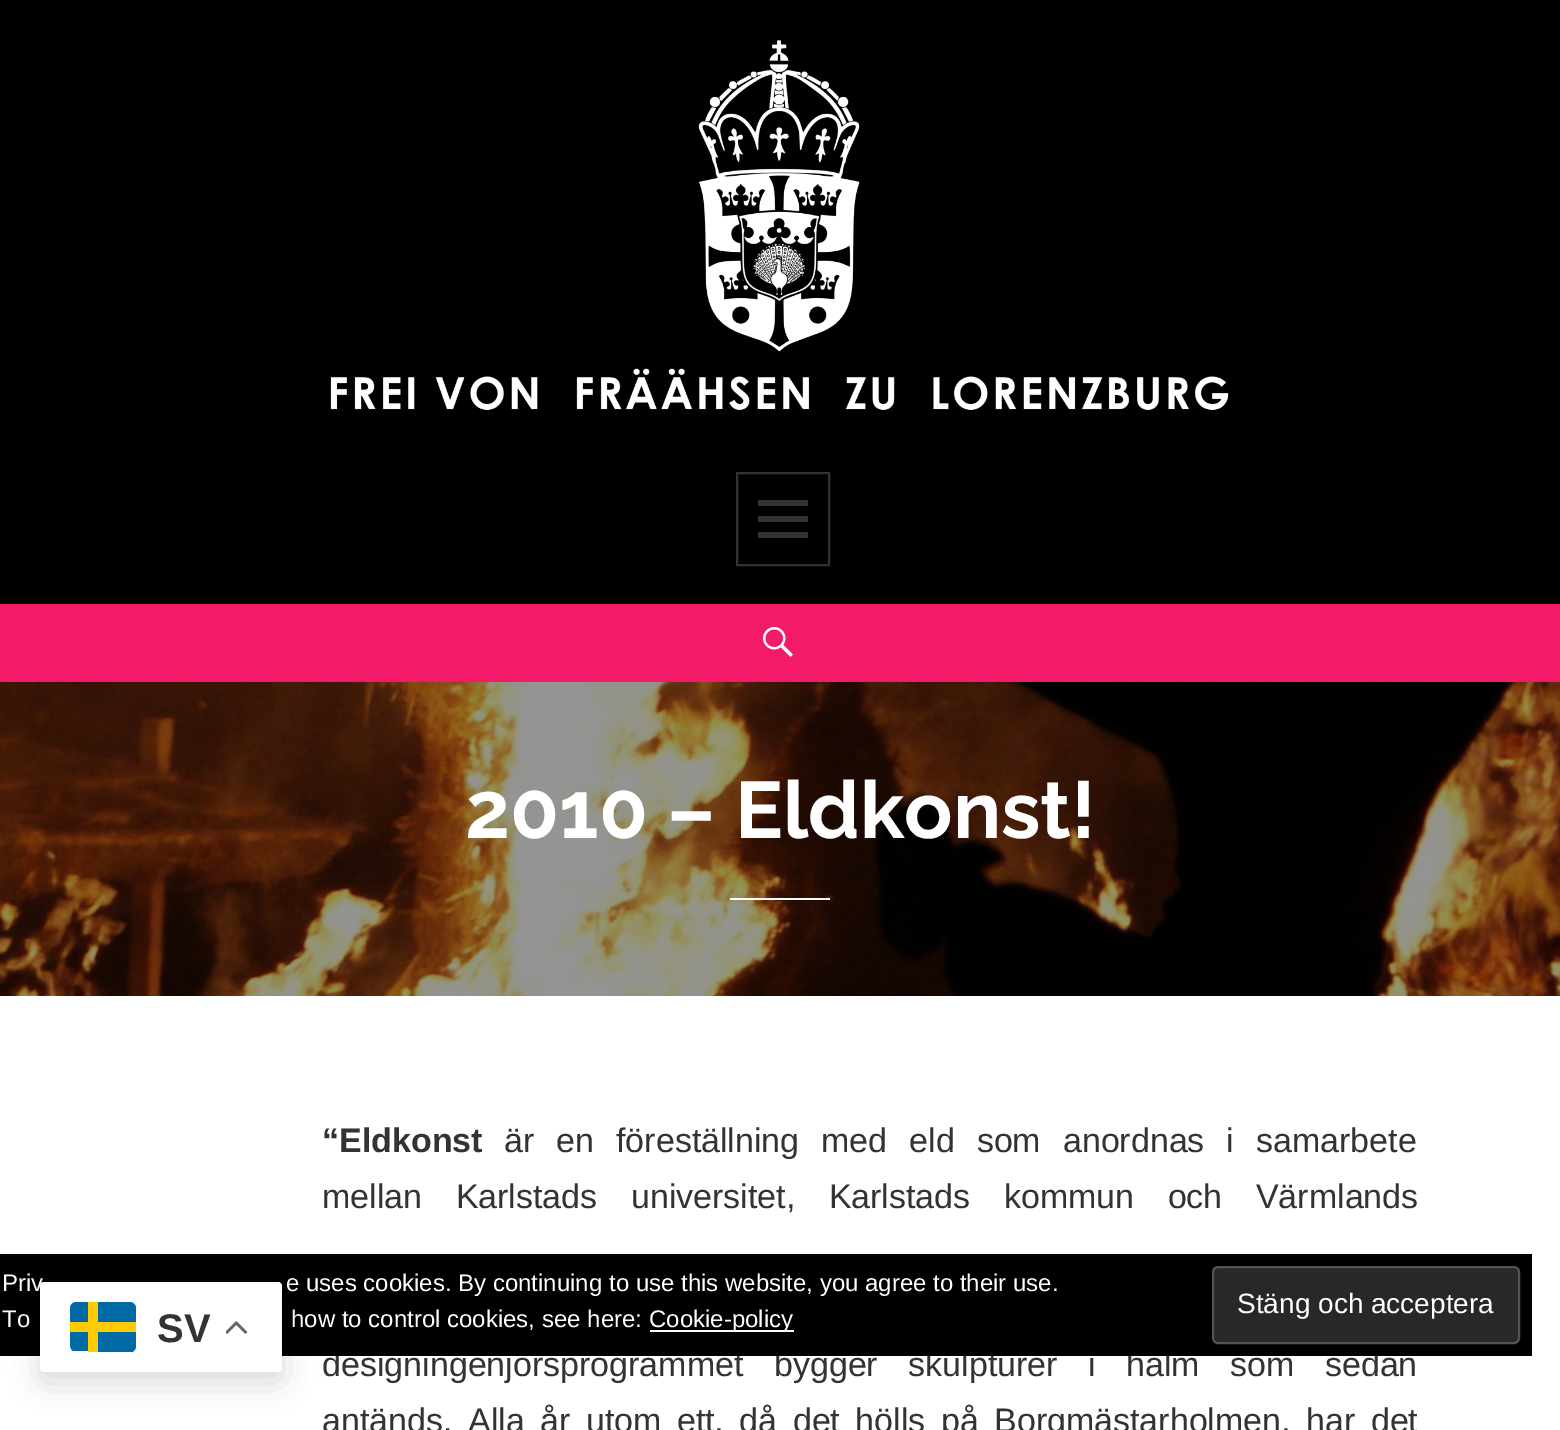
%!PS
<< /PageSize [1560 1430] /PageUsesTransparency true >> setpagedevice
/mt/moveto load def
/li/lineto load def
/ct/curveto load def
/cp/closepath load def
/fl/fill load def
/st/stroke load def
/gs/gsave load def
/gr/grestore load def
/lw/setlinewidth load def
/co { dup -16 bitshift 255 div exch dup -8 bitshift 255 and 255 div exch 255 and 255 div setrgbcolor } def
/fn { [ exch dup neg 0 0 3 -1 roll 0 0 ] selectfont } def
/tx { co fn moveto show } def
/bx { co rectfill } def
/al { dup .setfillconstantalpha .setstrokeconstantalpha } def
/rr { 5 dict begin { /r /h /w /y /x } { exch def } forall
  x r add y moveto x w add y 2 copy h add r arct x w add y h add x 1 index r arct
  x y h add x y r arct x y 2 copy exch w add exch r arct closepath end } def
/sh { 12 dict begin { /a /b /q /h /w /y /x } { exch def } forall gsave /was 0 def
  9 -2 -9 { dup b mul 4 div /e exch def 1 sub .425 mul 2.718 exch exp 1 add a .99 .min exch div /now exch def
    1 1 now sub 1 was sub div sub al /was now def
    w h .min e 2 mul add 0 gt { x e sub y e sub w e 2 mul add h e 2 mul add
      q e add b .6 mul add w h .min 2 div e add .min 0 .max rr fill } if } for grestore end } def
/im { 5 dict begin { /h /w /y /x /name } { exch def } forall
  gsave x y translate w h scale
  w h 8 [w 0 0 h 0 0] name (r) file false 3 colorimage grestore end } def
0 .pushpdf14devicefilter
0 1430 translate 1 -1 scale
4 setmiterlimit
0 0 1560 1430 16#FFFFFF bx
0 0 1560 604 16#000000 bx
(media/1.raw) 330 40 899 370 im
16#333333 co
2 lw
737 473 92 92 rectstroke
758 538 mt 758 532 li 808 532 li 808 538 li cp 758 500 mt 808 500 li 808 506 li 758 506 li cp 758 522 mt 758 516 li 808 516 li 808 522 li cp fl
0 604 1560 78 16#F21A69 bx
(media/2.raw) 763 627 30 30 im
(media/3.raw) 0 682 1560 314 im
730 898 100 2 16#FFFFFF bx
(2010 – Eldkonst!) 465 838 /Raleway-Bold 80 16#FFFFFF tx
(“Eldkonst) 322 1152 /LiberationSans-Bold 34 16#333333 tx
/LiberationSans-Regular 34 fn
504 1152 mt 12.5 0 32 (är en föreställning med eld som anordnas i samarbete) widthshow
322 1208 mt 24 0 32 (mellan Karlstads universitet, Karlstads kommun och Värmlands) widthshow
322 1376 mt 21 0 32 (designingenjörsprogrammet bygger skulpturer i halm som sedan) widthshow
322 1432 mt 6 0 32 (antänds. Alla år utom ett, då det hölls på Borgmästarholmen, har det) widthshow
0 1254 1532 102 16#000000 bx
(Priv) 2 1291 /LiberationSans-Regular 24 16#FFFFFF tx
(e uses cookies. By continuing to use this website, you agree to their use.) 286 1291 /LiberationSans-Regular 24 16#FFFFFF tx
(To) 2 1327 /LiberationSans-Regular 24 16#FFFFFF tx
(how to control cookies, see here:) 291 1327 /LiberationSans-Regular 24 16#FFFFFF tx
650 1330 144 2 16#FFFFFF bx
(Cookie-policy) 649 1327 /LiberationSans-Regular 24 16#FFFFFF tx
16#282828 co
1213 1267 306 76 5 rr gs fl gr
16#535353 co
st
(Stäng och acceptera) 1237 1313 /LiberationSans-Regular 28 16#FFFFFF tx
16#000000 co
40 1292 242 90 4 15 .15 sh
16#FFFFFF co
40 1282 242 90 4 rr fl
gs
70 1302 66 50 rectclip
16#006AA7 co
73 1351 mt 88 1351 li 88 1332 li 70 1332 li 70 1337 68 1348 73 1351 ct cp 76 1302 mt 88 1302 li 88 1322 li 70 1322 li 70 1308 li 70 1305 73 1302 76 1302 ct cp eofill
gr
70 1322 18 10 16#FECC00 bx
88 1302 10 50 16#FECC00 bx
98 1322 38 10 16#FECC00 bx
16#006AA7 co
98 1332 mt 136 1332 li 136 1346 li 136 1348 135 1351 132 1352 ct 98 1352 li cp 98 1302 mt 98 1322 li 136 1322 li 136 1308 li 136 1305 133 1302 130 1302 ct cp eofill
(SV) 157 1342 /LiberationSans-Bold 40 16#333333 tx
(media/4.raw) 226 1321 22 13 im
.poppdf14devicefilter showpage
